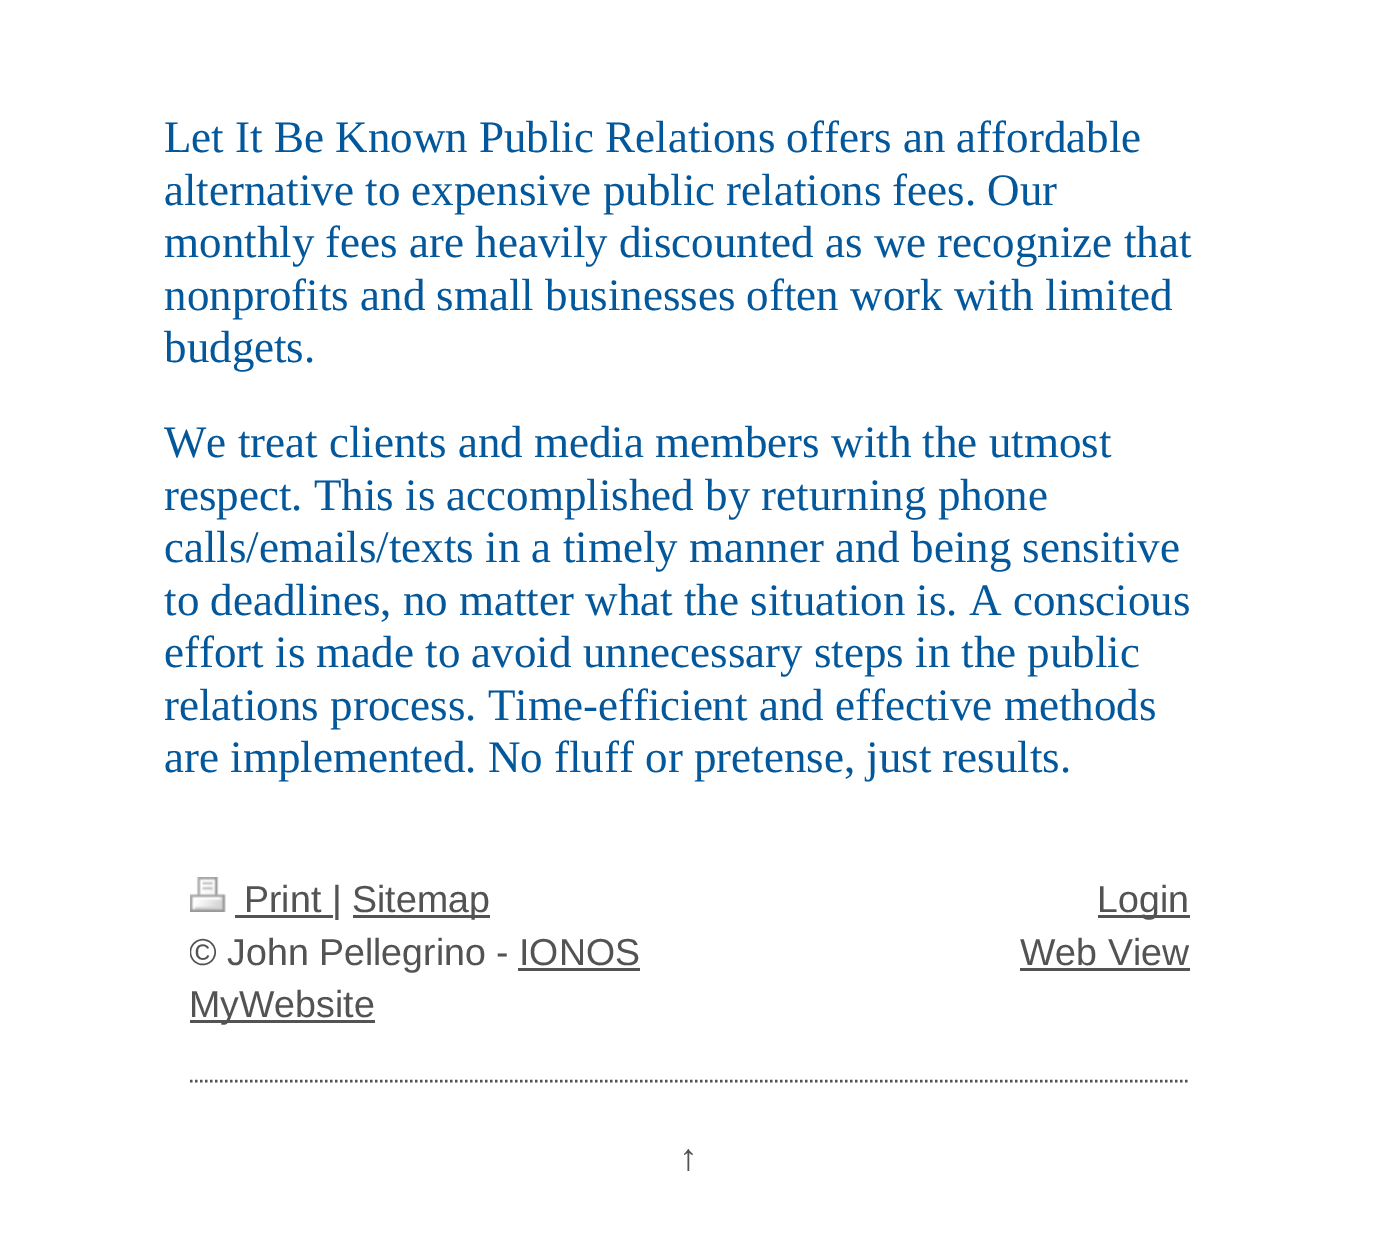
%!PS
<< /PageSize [1376 1241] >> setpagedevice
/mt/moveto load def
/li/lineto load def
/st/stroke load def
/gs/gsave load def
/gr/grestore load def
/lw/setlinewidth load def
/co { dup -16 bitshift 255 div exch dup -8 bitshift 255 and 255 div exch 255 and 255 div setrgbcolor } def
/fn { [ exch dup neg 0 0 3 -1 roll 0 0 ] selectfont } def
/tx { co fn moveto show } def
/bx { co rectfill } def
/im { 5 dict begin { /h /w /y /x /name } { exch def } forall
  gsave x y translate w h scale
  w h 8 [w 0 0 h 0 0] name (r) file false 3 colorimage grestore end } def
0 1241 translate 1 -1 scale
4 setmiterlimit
0 0 1376 1241 16#FFFFFF bx
(media/1.raw) 190 877 36 35 im
235 915 98 3 16#535353 bx
353 915 137 3 16#535353 bx
518 968 122 3 16#535353 bx
190 1020 185 3 16#535353 bx
1098 915 92 3 16#535353 bx
1020 968 170 3 16#535353 bx
2.5 lw
[2.5 2.5] 0 setdash
190 1081 mt 1190 1081 li st
(Let It Be Known Public Relations offers an affordable) 164 152 /LiberationSerif-Regular 45 16#03579B tx
(alternative to expensive public relations fees. Our) 164 205 /LiberationSerif-Regular 45 16#03579B tx
(monthly fees are heavily discounted as we recognize that) 164 257 /LiberationSerif-Regular 45 16#03579B tx
(nonprofits and small businesses often work with limited) 164 310 /LiberationSerif-Regular 45 16#03579B tx
(budgets.) 164 362 /LiberationSerif-Regular 45 16#03579B tx
(We treat clients and media members with the utmost) 164 457 /LiberationSerif-Regular 45 16#03579B tx
(respect. This is accomplished by returning phone) 164 510 /LiberationSerif-Regular 45 16#03579B tx
(calls/emails/texts in a timely manner and being sensitive) 164 562 /LiberationSerif-Regular 45 16#03579B tx
(to deadlines, no matter what the situation is. A conscious) 164 615 /LiberationSerif-Regular 45 16#03579B tx
(effort is made to avoid unnecessary steps in the public) 164 667 /LiberationSerif-Regular 45 16#03579B tx
(relations process. Time-efficient and effective methods) 164 720 /LiberationSerif-Regular 45 16#03579B tx
(are implemented. No fluff or pretense, just results.) 164 772 /LiberationSerif-Regular 45 16#03579B tx
(Print |) 244 912 /LiberationSans-Regular 37.5 16#535353 tx
(Sitemap) 352 912 /LiberationSans-Regular 37.5 16#535353 tx
gs
190 873 1000 157 rectclip
(© John Pellegrino -) 189 965 /LiberationSans-Regular 37.5 16#535353 tx
gr
(IONOS) 519 965 /LiberationSans-Regular 37.5 16#535353 tx
(MyWebsite) 189 1017 /LiberationSans-Regular 37.5 16#535353 tx
(Login) 1097 912 /LiberationSans-Regular 37.5 16#535353 tx
(Web View) 1020 965 /LiberationSans-Regular 37.5 16#535353 tx
(↑) 679 1170 /LiberationSans-Regular 37.5 16#535353 tx
showpage
